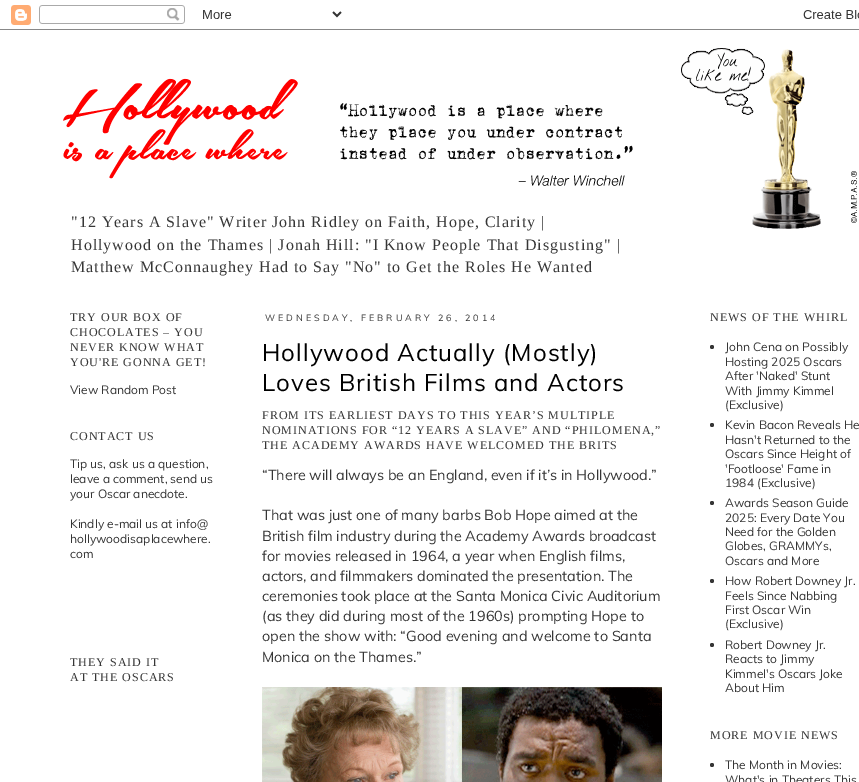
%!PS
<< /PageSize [859 782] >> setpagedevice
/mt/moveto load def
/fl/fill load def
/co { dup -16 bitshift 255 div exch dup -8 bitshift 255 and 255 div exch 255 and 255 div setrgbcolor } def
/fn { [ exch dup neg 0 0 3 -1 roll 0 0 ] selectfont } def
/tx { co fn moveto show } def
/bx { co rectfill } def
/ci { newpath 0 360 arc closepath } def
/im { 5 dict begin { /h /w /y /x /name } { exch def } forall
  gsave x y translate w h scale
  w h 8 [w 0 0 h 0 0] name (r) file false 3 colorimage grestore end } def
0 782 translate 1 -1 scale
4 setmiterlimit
0 0 859 782 16#FFFFFF bx
(media/1.raw) 0 5 859 25 im
(media/2.raw) 63 48 794 181 im
(media/3.raw) 262 687 400 95 im
16#363636 co
712 347 2 ci fl
712 425 2 ci fl
712 503 2 ci fl
712 581 2 ci fl
712 645 2 ci fl
712 765 2 ci fl
/LiberationSerif-Regular 16 fn
71 227 mt 1 0 ("12 Years A Slave" Writer John Ridley on Faith, Hope, Clarity |) ashow
71 250 mt 1 0 (Hollywood on the Thames | Jonah Hill: "I Know People That Disgusting" |) ashow
71 272 mt 1 0 (Matthew McConnaughey Had to Say "No" to Get the Roles He Wanted) ashow
/LiberationSerif-Regular 12 fn
70 321 mt 1 0 (TRY OUR BOX OF) ashow
70 336 mt 1 0 (CHOCOLATES – YOU) ashow
70 351 mt 1 0 (NEVER KNOW WHAT) ashow
70 366 mt 1 0 (YOU'RE GONNA GET!) ashow
(View Random Post) 70 394 /Muli-Regular 12 16#363636 tx
/LiberationSerif-Regular 12 fn
70 440 mt 1 0 (CONTACT US) ashow
(Tip us, ask us a question,) 70 468 /Muli-Regular 12 16#363636 tx
(leave a comment, send us) 70 483 /Muli-Regular 12 16#363636 tx
(your Oscar anecdote.) 70 498 /Muli-Regular 12 16#363636 tx
(Kindly e-mail us at info@) 70 528 /Muli-Regular 12 16#363636 tx
(hollywoodisaplacewhere.) 70 543 /Muli-Regular 12 16#363636 tx
(com) 70 558 /Muli-Regular 12 16#363636 tx
/LiberationSerif-Regular 12 fn
70 666 mt 1 0 (THEY SAID IT) ashow
70 681 mt 1 0 (AT THE OSCARS) ashow
/Muli-Regular 9 fn
265 321 mt 3 0 (WEDNESDAY, FEBRUARY 26, 2014) ashow
/Muli-Regular 24 fn
16#000000 co
262 361 mt 1 0 (Hollywood Actually \(Mostly\)) ashow
262 391 mt 1 0 (Loves British Films and Actors) ashow
/LiberationSerif-Regular 12 fn
16#363636 co
262 419 mt 1 0 (FROM ITS EARLIEST DAYS TO THIS YEAR’S MULTIPLE) ashow
262 434 mt 1 0 (NOMINATIONS FOR “12 YEARS A SLAVE” AND “PHILOMENA,”) ashow
262 449 mt 1 0 (THE ACADEMY AWARDS HAVE WELCOMED THE BRITS) ashow
(“There will always be an England, even if it’s in Hollywood.”) 262 480 /Muli-Regular 14.4 16#363636 tx
(That was just one of many barbs Bob Hope aimed at the) 262 520 /Muli-Regular 14.4 16#363636 tx
(British film industry during the Academy Awards broadcast) 262 541 /Muli-Regular 14.4 16#363636 tx
(for movies released in 1964, a year when English films,) 262 561 /Muli-Regular 14.4 16#363636 tx
(actors, and filmmakers dominated the presentation. The) 262 581 /Muli-Regular 14.4 16#363636 tx
(ceremonies took place at the Santa Monica Civic Auditorium) 262 601 /Muli-Regular 14.4 16#363636 tx
(\(as they did during most of the 1960s\) prompting Hope to) 262 621 /Muli-Regular 14.4 16#363636 tx
(open the show with: “Good evening and welcome to Santa) 262 641 /Muli-Regular 14.4 16#363636 tx
(Monica on the Thames.”) 262 662 /Muli-Regular 14.4 16#363636 tx
/LiberationSerif-Regular 12 fn
710 321 mt 1 0 (NEWS OF THE WHIRL) ashow
(John Cena on Possibly) 725 351 /Muli-Regular 12 16#363636 tx
(Hosting 2025 Oscars) 725 366 /Muli-Regular 12 16#363636 tx
(After 'Naked' Stunt) 725 380 /Muli-Regular 12 16#363636 tx
(With Jimmy Kimmel) 725 395 /Muli-Regular 12 16#363636 tx
(\(Exclusive\)) 725 409 /Muli-Regular 12 16#363636 tx
(Kevin Bacon Reveals He) 725 429 /Muli-Regular 12 16#363636 tx
(Hasn't Returned to the) 725 444 /Muli-Regular 12 16#363636 tx
(Oscars Since Height of) 725 458 /Muli-Regular 12 16#363636 tx
('Footloose' Fame in) 725 473 /Muli-Regular 12 16#363636 tx
(1984 \(Exclusive\)) 725 487 /Muli-Regular 12 16#363636 tx
(Awards Season Guide) 725 507 /Muli-Regular 12 16#363636 tx
(2025: Every Date You) 725 522 /Muli-Regular 12 16#363636 tx
(Need for the Golden) 725 536 /Muli-Regular 12 16#363636 tx
(Globes, GRAMMYs,) 725 550 /Muli-Regular 12 16#363636 tx
(Oscars and More) 725 565 /Muli-Regular 12 16#363636 tx
(How Robert Downey Jr.) 725 585 /Muli-Regular 12 16#363636 tx
(Feels Since Nabbing) 725 600 /Muli-Regular 12 16#363636 tx
(First Oscar Win) 725 614 /Muli-Regular 12 16#363636 tx
(\(Exclusive\)) 725 628 /Muli-Regular 12 16#363636 tx
(Robert Downey Jr.) 725 649 /Muli-Regular 12 16#363636 tx
(Reacts to Jimmy) 725 663 /Muli-Regular 12 16#363636 tx
(Kimmel's Oscars Joke) 725 678 /Muli-Regular 12 16#363636 tx
(About Him) 725 692 /Muli-Regular 12 16#363636 tx
/LiberationSerif-Regular 12 fn
710 739 mt 1 0 (MORE MOVIE NEWS) ashow
(The Month in Movies:) 725 769 /Muli-Regular 12 16#363636 tx
(What's in Theaters This) 725 784 /Muli-Regular 12 16#363636 tx
showpage
